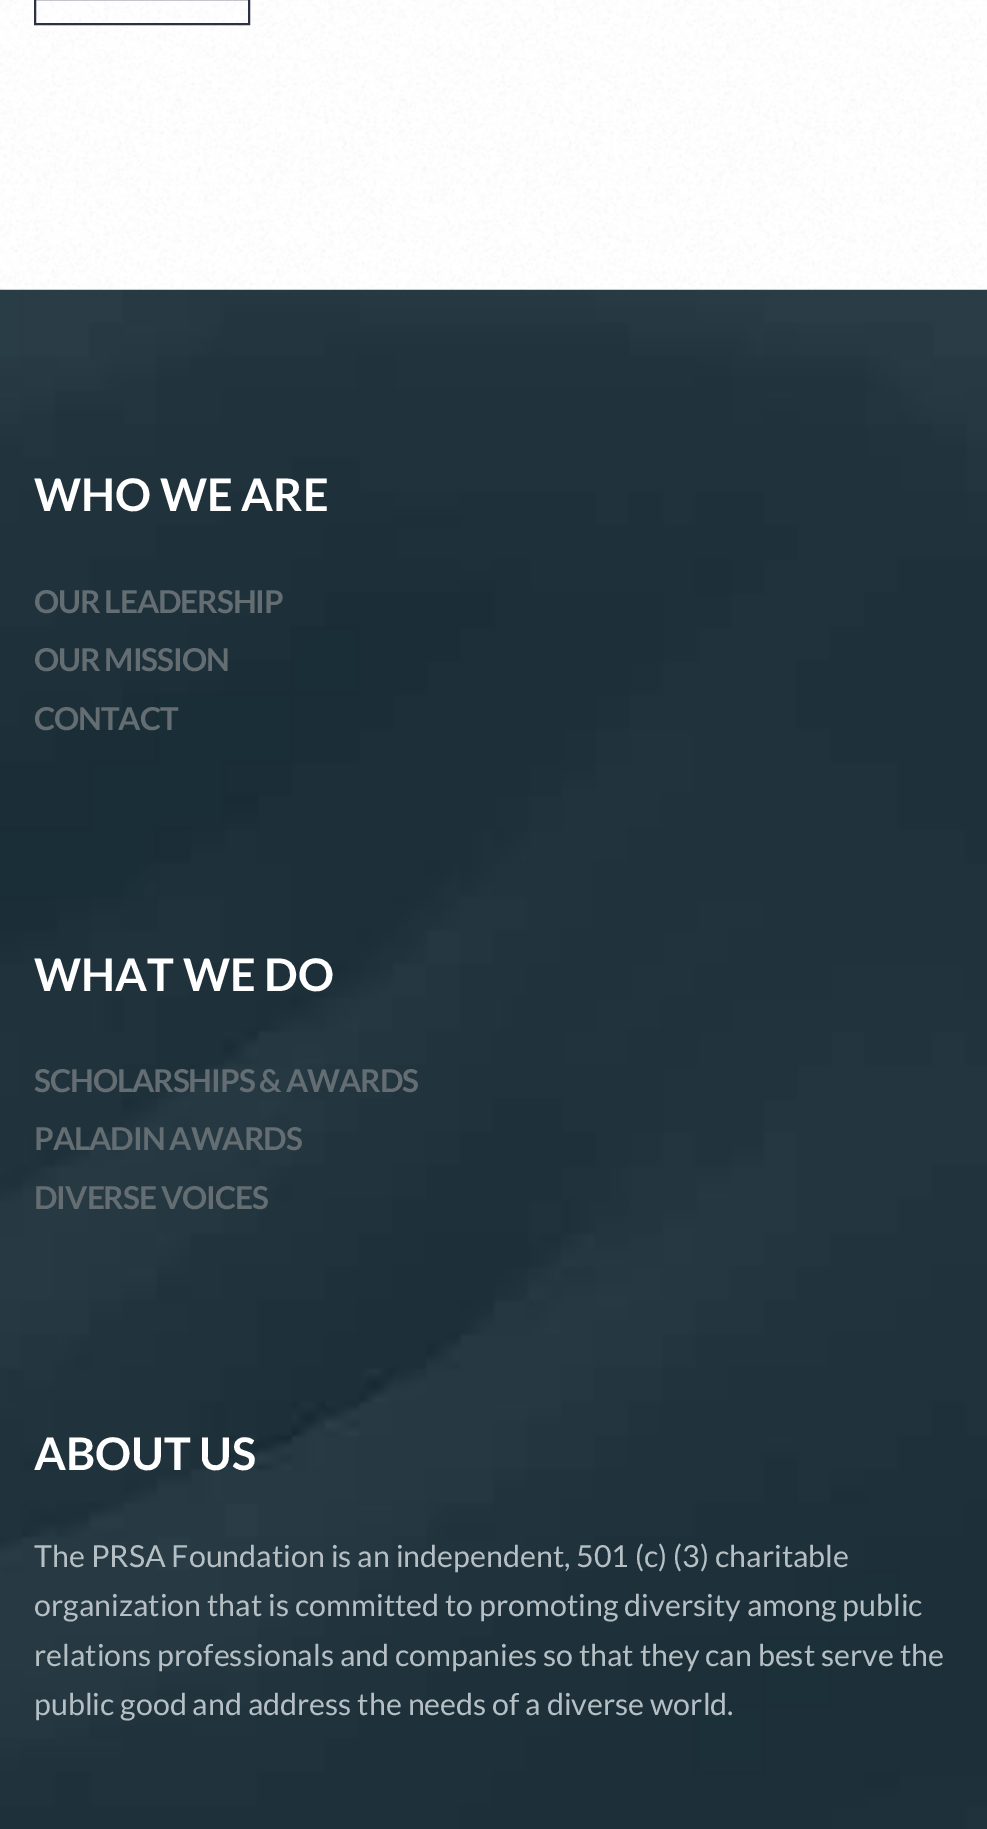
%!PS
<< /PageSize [987 1829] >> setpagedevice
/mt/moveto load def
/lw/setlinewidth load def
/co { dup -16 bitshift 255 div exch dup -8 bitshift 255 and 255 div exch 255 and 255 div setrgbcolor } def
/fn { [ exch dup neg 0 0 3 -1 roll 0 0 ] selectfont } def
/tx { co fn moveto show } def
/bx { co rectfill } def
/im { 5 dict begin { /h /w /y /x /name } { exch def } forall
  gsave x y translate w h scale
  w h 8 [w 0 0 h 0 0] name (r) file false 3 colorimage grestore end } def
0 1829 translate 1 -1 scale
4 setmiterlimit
0 0 987 1829 16#FFFFFF bx
(media/1.raw) 0 0 987 290 im
16#2D3144 co
2 lw
35 -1 214 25 rectstroke
(media/2.raw) 0 289 987 1540 im
(WHO WE ARE) 34 511 /Lato-Bold 45 16#FFFFFF tx
/Lato-Bold 31.5 fn
16#636D72 co
34 613 mt -1.1 0 (OUR LEADERSHIP) ashow
34 671 mt -1.1 0 (OUR MISSION) ashow
34 730 mt -1.1 0 (CONTACT) ashow
(WHAT WE DO) 34 991 /Lato-Bold 45 16#FFFFFF tx
/Lato-Bold 31.5 fn
16#636D72 co
34 1092 mt -1.1 0 (SCHOLARSHIPS & AWARDS) ashow
34 1150 mt -1.1 0 (PALADIN AWARDS) ashow
34 1209 mt -1.1 0 (DIVERSE VOICES) ashow
(ABOUT US) 34 1470 /Lato-Bold 45 16#FFFFFF tx
(The PRSA Foundation is an independent, 501 \(c\) \(3\) charitable) 34 1567 /Lato-Regular 30.4 16#B5BFC4 tx
(organization that is committed to promoting diversity among public) 34 1616 /Lato-Regular 30.4 16#B5BFC4 tx
(relations professionals and companies so that they can best serve the) 34 1666 /Lato-Regular 30.4 16#B5BFC4 tx
(public good and address the needs of a diverse world.) 34 1715 /Lato-Regular 30.4 16#B5BFC4 tx
showpage
